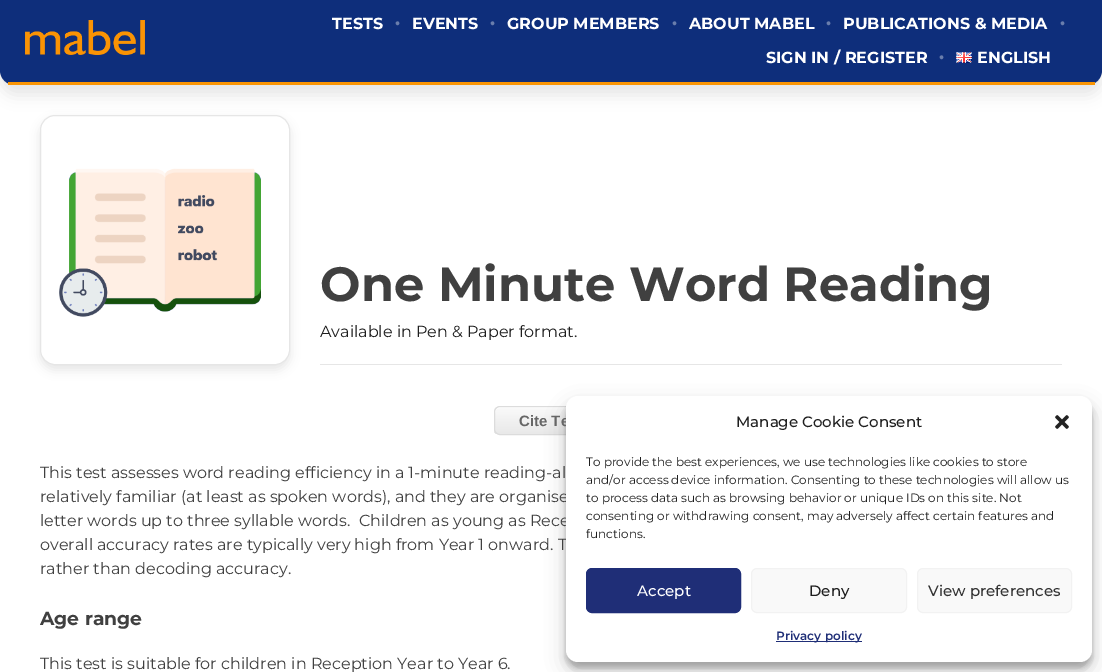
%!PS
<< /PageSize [1102 672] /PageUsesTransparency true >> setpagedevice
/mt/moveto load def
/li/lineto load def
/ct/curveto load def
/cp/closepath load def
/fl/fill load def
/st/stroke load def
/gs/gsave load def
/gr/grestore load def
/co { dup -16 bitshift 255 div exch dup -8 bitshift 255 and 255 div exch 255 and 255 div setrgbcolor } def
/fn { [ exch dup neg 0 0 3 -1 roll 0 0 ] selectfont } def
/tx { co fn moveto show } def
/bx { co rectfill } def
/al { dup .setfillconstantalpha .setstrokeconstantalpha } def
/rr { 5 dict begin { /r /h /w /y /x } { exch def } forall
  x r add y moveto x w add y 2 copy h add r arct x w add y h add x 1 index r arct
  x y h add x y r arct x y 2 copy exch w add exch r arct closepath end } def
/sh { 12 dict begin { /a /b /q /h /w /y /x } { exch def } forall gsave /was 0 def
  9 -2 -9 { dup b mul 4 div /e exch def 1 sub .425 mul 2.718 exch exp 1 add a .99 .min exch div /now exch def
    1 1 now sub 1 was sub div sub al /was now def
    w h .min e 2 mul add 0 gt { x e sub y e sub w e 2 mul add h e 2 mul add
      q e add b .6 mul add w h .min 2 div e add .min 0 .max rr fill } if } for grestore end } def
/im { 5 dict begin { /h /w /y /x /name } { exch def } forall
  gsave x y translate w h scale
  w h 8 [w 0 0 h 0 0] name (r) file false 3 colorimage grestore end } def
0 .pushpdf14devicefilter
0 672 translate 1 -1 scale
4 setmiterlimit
0 0 1102 672 16#FFFFFF bx
16#000000 co
0 10 1102 85 15 7.5 .1 sh
16#0E2E7B co
0 0 mt 1102 0 li 1102 70 li 1102 78.5 1095.5 85 1087 85 ct 15 85 li 6.5 85 0 78.5 0 70 ct cp fl
8 82 1087 3 16#FA9504 bx
(media/1.raw) 25 20 120 35 im
(media/2.raw) 956 52 16 11 im
gs
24 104 mt 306 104 li 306 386 li 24 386 li cp 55 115 mt 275 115 li 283.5 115 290 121.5 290 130 ct 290 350 li 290 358.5 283.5 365 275 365 ct 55 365 li 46.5 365 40 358.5 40 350 ct 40 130 li 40 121.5 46.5 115 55 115 ct cp eoclip newpath
16#000000 co
40 120 250 250 15 5 .1 sh
gr
16#E6E6E6 co
40.5 115.5 249 249 14.5 rr st
(media/3.raw) 59 168 202 149 im
320 364 742 1 16#E6E6E6 bx
gs
494 406 114 29 6 rr clip newpath
gs 494 407 mt 566 407 li 566 434 li 494 434 li cp clip newpath
<< /ShadingType 2 /ColorSpace /DeviceRGB /Coords [551 407 551 434] /Extend [true true] /Function << /FunctionType 3 /Domain [0 1] /Functions [<< /FunctionType 2 /Domain [0 1] /C0 [.976 .976 .976] /C1 [.976 .976 .976] /N 1 >> << /FunctionType 2 /Domain [0 1] /C0 [.976 .976 .976] /C1 [.914 .914 .914] /N 1 >>] /Bounds [.05] /Encode [0 1 0 1] >> >> shfill gr
gr
16#FFFFFF co
500 408 mt 602 408 li 605 408 607 410 607 413 ct 607 403 590 407 585 407 ct 517 407 li 512 407 495 403 495 413 ct 495 410 497 408 500 408 ct cp fl
16#DCDCDC co
494.5 406.5 113 28 5.5 rr st
16#000000 co
566 402 526 266 12 3 .23 sh
566 406 526 266 12 10 .19 sh
(TESTS) 332 29 /Montserrat-Bold 16 16#FFFFFF tx
(·) 393 33 /Montserrat-Regular 36 16#6A7EAC tx
(EVENTS) 412 29 /Montserrat-Bold 16 16#FFFFFF tx
(·) 488 33 /Montserrat-Regular 36 16#6A7EAC tx
(GROUP MEMBERS) 507 29 /Montserrat-Bold 16 16#FFFFFF tx
(·) 670 33 /Montserrat-Regular 36 16#6A7EAC tx
(ABOUT MABEL) 689 29 /Montserrat-Bold 16 16#FFFFFF tx
(·) 824 33 /Montserrat-Regular 36 16#6A7EAC tx
(PUBLICATIONS & MEDIA) 843 29 /Montserrat-Bold 16 16#FFFFFF tx
(·) 1058 33 /Montserrat-Regular 36 16#6A7EAC tx
(SIGN IN / REGISTER) 766 63 /Montserrat-Bold 16 16#FFFFFF tx
(·) 937 67 /Montserrat-Regular 36 16#6A7EAC tx
(ENGLISH) 977 63 /Montserrat-Bold 16 16#FFFFFF tx
(One Minute Word Reading) 320 301 /Montserrat-Bold 48 16#404040 tx
(Available in Pen & Paper format.) 320 337 /Montserrat-Regular 16 16#1E1E1E tx
(Cite Te) 519 426 /LiberationSans-Bold 15 16#666666 tx
(This test assesses word reading efficiency in a 1-minute reading-al) 40 478 /Montserrat-Regular 16 16#404040 tx
(relatively familiar \(at least as spoken words\), and they are organise) 40 502 /Montserrat-Regular 16 16#404040 tx
(letter words up to three syllable words.  Children as young as Rece) 40 526 /Montserrat-Regular 16 16#404040 tx
(overall accuracy rates are typically very high from Year 1 onward. T) 40 550 /Montserrat-Regular 16 16#404040 tx
(rather than decoding accuracy.) 40 574 /Montserrat-Regular 16 16#404040 tx
(Age range) 40 625 /Montserrat-Bold 18.75 16#404040 tx
(This test is suitable for children in Reception Year to Year 6.) 40 669 /Montserrat-Regular 16 16#404040 tx
16#FFFFFF co
566 396 526 266 12 rr fl
(Manage Cookie Consent) 736 427 /Montserrat-Medium 15 16#1E1E1E tx
(media/4.raw) 1055 415 14 14 im
(To provide the best experiences, we use technologies like cookies to store) 586 466 /Montserrat-Regular 12 16#1E1E1E tx
(and/or access device information. Consenting to these technologies will allow us) 586 484 /Montserrat-Regular 12 16#1E1E1E tx
(to process data such as browsing behavior or unique IDs on this site. Not) 586 502 /Montserrat-Regular 12 16#1E1E1E tx
(consenting or withdrawing consent, may adversely affect certain features and) 586 520 /Montserrat-Regular 12 16#1E1E1E tx
(functions.) 586 538 /Montserrat-Regular 12 16#1E1E1E tx
16#1F2E77 co
586.5 568.5 154 44 5.5 rr gs fl gr
st
(Accept) 637 596 /Montserrat-Medium 15 16#FFFFFF tx
16#F9F9F9 co
751.5 568.5 155 44 5.5 rr gs fl gr
16#F2F2F2 co
st
(Deny) 809 596 /Montserrat-Medium 15 16#1E1E1E tx
16#F9F9F9 co
917.5 568.5 154 44 5.5 rr gs fl gr
16#F2F2F2 co
st
(View preferences) 928 596 /Montserrat-Medium 15 16#333333 tx
776 641 86 1 16#1F2E77 bx
(Privacy policy) 776 640 /Montserrat-SemiBold 12 16#1F2E77 tx
.poppdf14devicefilter showpage
